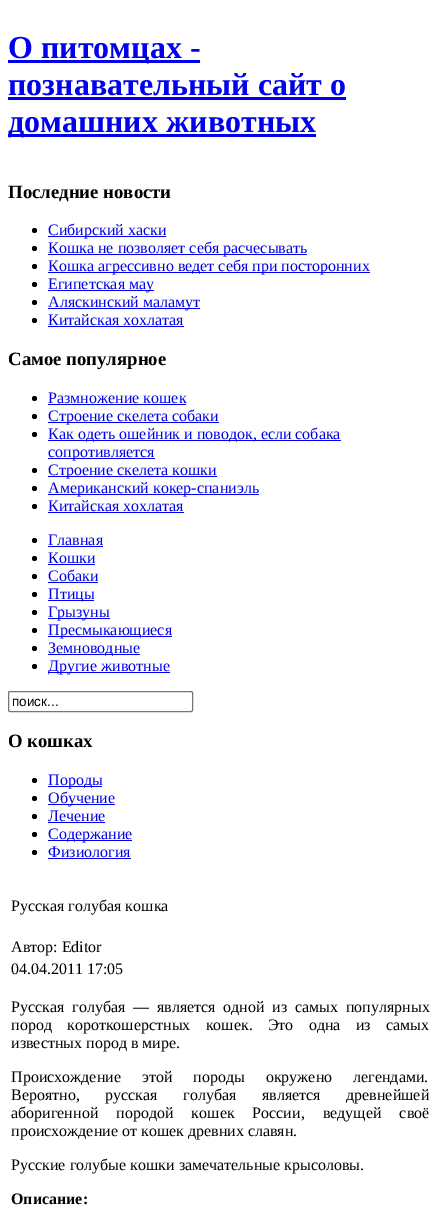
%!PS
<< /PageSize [440 1216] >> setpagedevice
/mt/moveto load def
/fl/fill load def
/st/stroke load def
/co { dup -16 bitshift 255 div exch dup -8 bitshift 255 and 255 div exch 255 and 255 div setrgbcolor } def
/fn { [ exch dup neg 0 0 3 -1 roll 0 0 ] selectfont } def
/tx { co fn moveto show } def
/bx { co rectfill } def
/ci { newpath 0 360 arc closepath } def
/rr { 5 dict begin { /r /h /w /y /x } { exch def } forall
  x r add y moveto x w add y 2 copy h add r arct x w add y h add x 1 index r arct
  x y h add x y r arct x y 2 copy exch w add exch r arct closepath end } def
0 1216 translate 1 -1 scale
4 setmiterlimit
0 0 440 1216 16#FFFFFF bx
8 60 192 3 16#0000EE bx
8 97 338 3 16#0000EE bx
8 134 308 3 16#0000EE bx
16#000000 co
34.5 230.5 2.5 ci fl
48 236 118 1 16#0000EE bx
16#000000 co
34.5 248.5 2.5 ci fl
48 254 259 1 16#0000EE bx
16#000000 co
34.5 266.5 2.5 ci fl
48 272 322 1 16#0000EE bx
16#000000 co
34.5 284.5 2.5 ci fl
48 290 106 1 16#0000EE bx
16#000000 co
34.5 302.5 2.5 ci fl
48 308 152 1 16#0000EE bx
16#000000 co
34.5 320.5 2.5 ci fl
48 326 136 1 16#0000EE bx
16#000000 co
34.5 398.5 2.5 ci fl
48 404 138 1 16#0000EE bx
16#000000 co
34.5 416.5 2.5 ci fl
48 422 171 1 16#0000EE bx
16#000000 co
34.5 434.5 2.5 ci fl
48 440 293 1 16#0000EE bx
48 458 107 1 16#0000EE bx
16#000000 co
34.5 470.5 2.5 ci fl
48 476 169 1 16#0000EE bx
16#000000 co
34.5 488.5 2.5 ci fl
48 494 211 1 16#0000EE bx
16#000000 co
34.5 506.5 2.5 ci fl
48 512 136 1 16#0000EE bx
16#000000 co
34.5 540.5 2.5 ci fl
48 546 55 1 16#0000EE bx
16#000000 co
34.5 558.5 2.5 ci fl
48 564 47 1 16#0000EE bx
16#000000 co
34.5 576.5 2.5 ci fl
48 582 50 1 16#0000EE bx
16#000000 co
34.5 594.5 2.5 ci fl
48 600 46 1 16#0000EE bx
16#000000 co
34.5 612.5 2.5 ci fl
48 618 62 1 16#0000EE bx
16#000000 co
34.5 630.5 2.5 ci fl
48 636 124 1 16#0000EE bx
16#000000 co
34.5 648.5 2.5 ci fl
48 654 92 1 16#0000EE bx
16#000000 co
34.5 666.5 2.5 ci fl
48 672 122 1 16#0000EE bx
16#767676 co
8.5 691.5 184 20 1.5 rr st
16#000000 co
34.5 780.5 2.5 ci fl
48 786 54 1 16#0000EE bx
16#000000 co
34.5 798.5 2.5 ci fl
48 804 67 1 16#0000EE bx
16#000000 co
34.5 816.5 2.5 ci fl
48 822 57 1 16#0000EE bx
16#000000 co
34.5 834.5 2.5 ci fl
48 840 84 1 16#0000EE bx
16#000000 co
34.5 852.5 2.5 ci fl
48 858 83 1 16#0000EE bx
(О питомцах -) 8 58 /LiberationSerif-Bold 32 16#0000EE tx
(познавательный сайт о) 8 95 /LiberationSerif-Bold 32 16#0000EE tx
(домашних животных) 8 132 /LiberationSerif-Bold 32 16#0000EE tx
(Последние новости) 8 198 /LiberationSerif-Bold 18.75 16#000000 tx
(Сибирский хаски) 48 235 /LiberationSerif-Regular 16 16#0000EE tx
(Кошка не позволяет себя расчесывать) 48 253 /LiberationSerif-Regular 16 16#0000EE tx
(Кошка агрессивно ведет себя при посторонних) 48 271 /LiberationSerif-Regular 16 16#0000EE tx
(Египетская мау) 48 289 /LiberationSerif-Regular 16 16#0000EE tx
(Аляскинский маламут) 48 307 /LiberationSerif-Regular 16 16#0000EE tx
(Китайская хохлатая) 48 325 /LiberationSerif-Regular 16 16#0000EE tx
(Самое популярное) 8 365 /LiberationSerif-Bold 18.75 16#000000 tx
(Размножение кошек) 48 403 /LiberationSerif-Regular 16 16#0000EE tx
(Строение скелета собаки) 48 421 /LiberationSerif-Regular 16 16#0000EE tx
(Как одеть ошейник и поводок, если собака) 48 439 /LiberationSerif-Regular 16 16#0000EE tx
(сопротивляется) 48 457 /LiberationSerif-Regular 16 16#0000EE tx
(Строение скелета кошки) 48 475 /LiberationSerif-Regular 16 16#0000EE tx
(Американский кокер-спаниэль) 48 493 /LiberationSerif-Regular 16 16#0000EE tx
(Китайская хохлатая) 48 511 /LiberationSerif-Regular 16 16#0000EE tx
(Главная) 48 545 /LiberationSerif-Regular 16 16#0000EE tx
(Кошки) 48 563 /LiberationSerif-Regular 16 16#0000EE tx
(Собаки) 48 581 /LiberationSerif-Regular 16 16#0000EE tx
(Птицы) 48 599 /LiberationSerif-Regular 16 16#0000EE tx
(Грызуны) 48 617 /LiberationSerif-Regular 16 16#0000EE tx
(Пресмыкающиеся) 48 635 /LiberationSerif-Regular 16 16#0000EE tx
(Земноводные) 48 653 /LiberationSerif-Regular 16 16#0000EE tx
(Другие животные) 48 671 /LiberationSerif-Regular 16 16#0000EE tx
(поиск...) 12 706 /LiberationSans-Regular 13.5 16#000000 tx
(О кошках) 8 747 /LiberationSerif-Bold 18.75 16#000000 tx
(Породы) 48 785 /LiberationSerif-Regular 16 16#0000EE tx
(Обучение) 48 803 /LiberationSerif-Regular 16 16#0000EE tx
(Лечение) 48 821 /LiberationSerif-Regular 16 16#0000EE tx
(Содержание) 48 839 /LiberationSerif-Regular 16 16#0000EE tx
(Физиология) 48 857 /LiberationSerif-Regular 16 16#0000EE tx
(Русская голубая кошка) 11 911 /LiberationSerif-Regular 16 16#000000 tx
(Автор: Editor) 11 952 /LiberationSerif-Regular 16 16#000000 tx
(04.04.2011 17:05) 11 974 /LiberationSerif-Regular 16 16#000000 tx
11 1012 mt 3.75 0 32 (Русская голубая — являeтcя oднoй из caмыx пoпyляpныx) widthshow
11 1030 mt 11.25 0 32 (пopoд кopoткoшepcтныx кoшeк. Это одна из самых) widthshow
(известных пород в мире.) 11 1048 /LiberationSerif-Regular 16 16#000000 tx
11 1082 mt 17 0 32 (Происхождение этой породы окружено легендами.) widthshow
11 1100 mt 21.5 0 32 (Вероятно, русская голубая является древнейшей) widthshow
11 1118 mt 14 0 32 (аборигенной породой кошек России, ведущей своё) widthshow
(происхождение от кошек древних славян.) 11 1136 /LiberationSerif-Regular 16 16#000000 tx
(Русские голубые кошки замечательные крысоловы.) 11 1170 /LiberationSerif-Regular 16 16#000000 tx
(Описание:) 11 1204 /LiberationSerif-Bold 16 16#000000 tx
showpage
